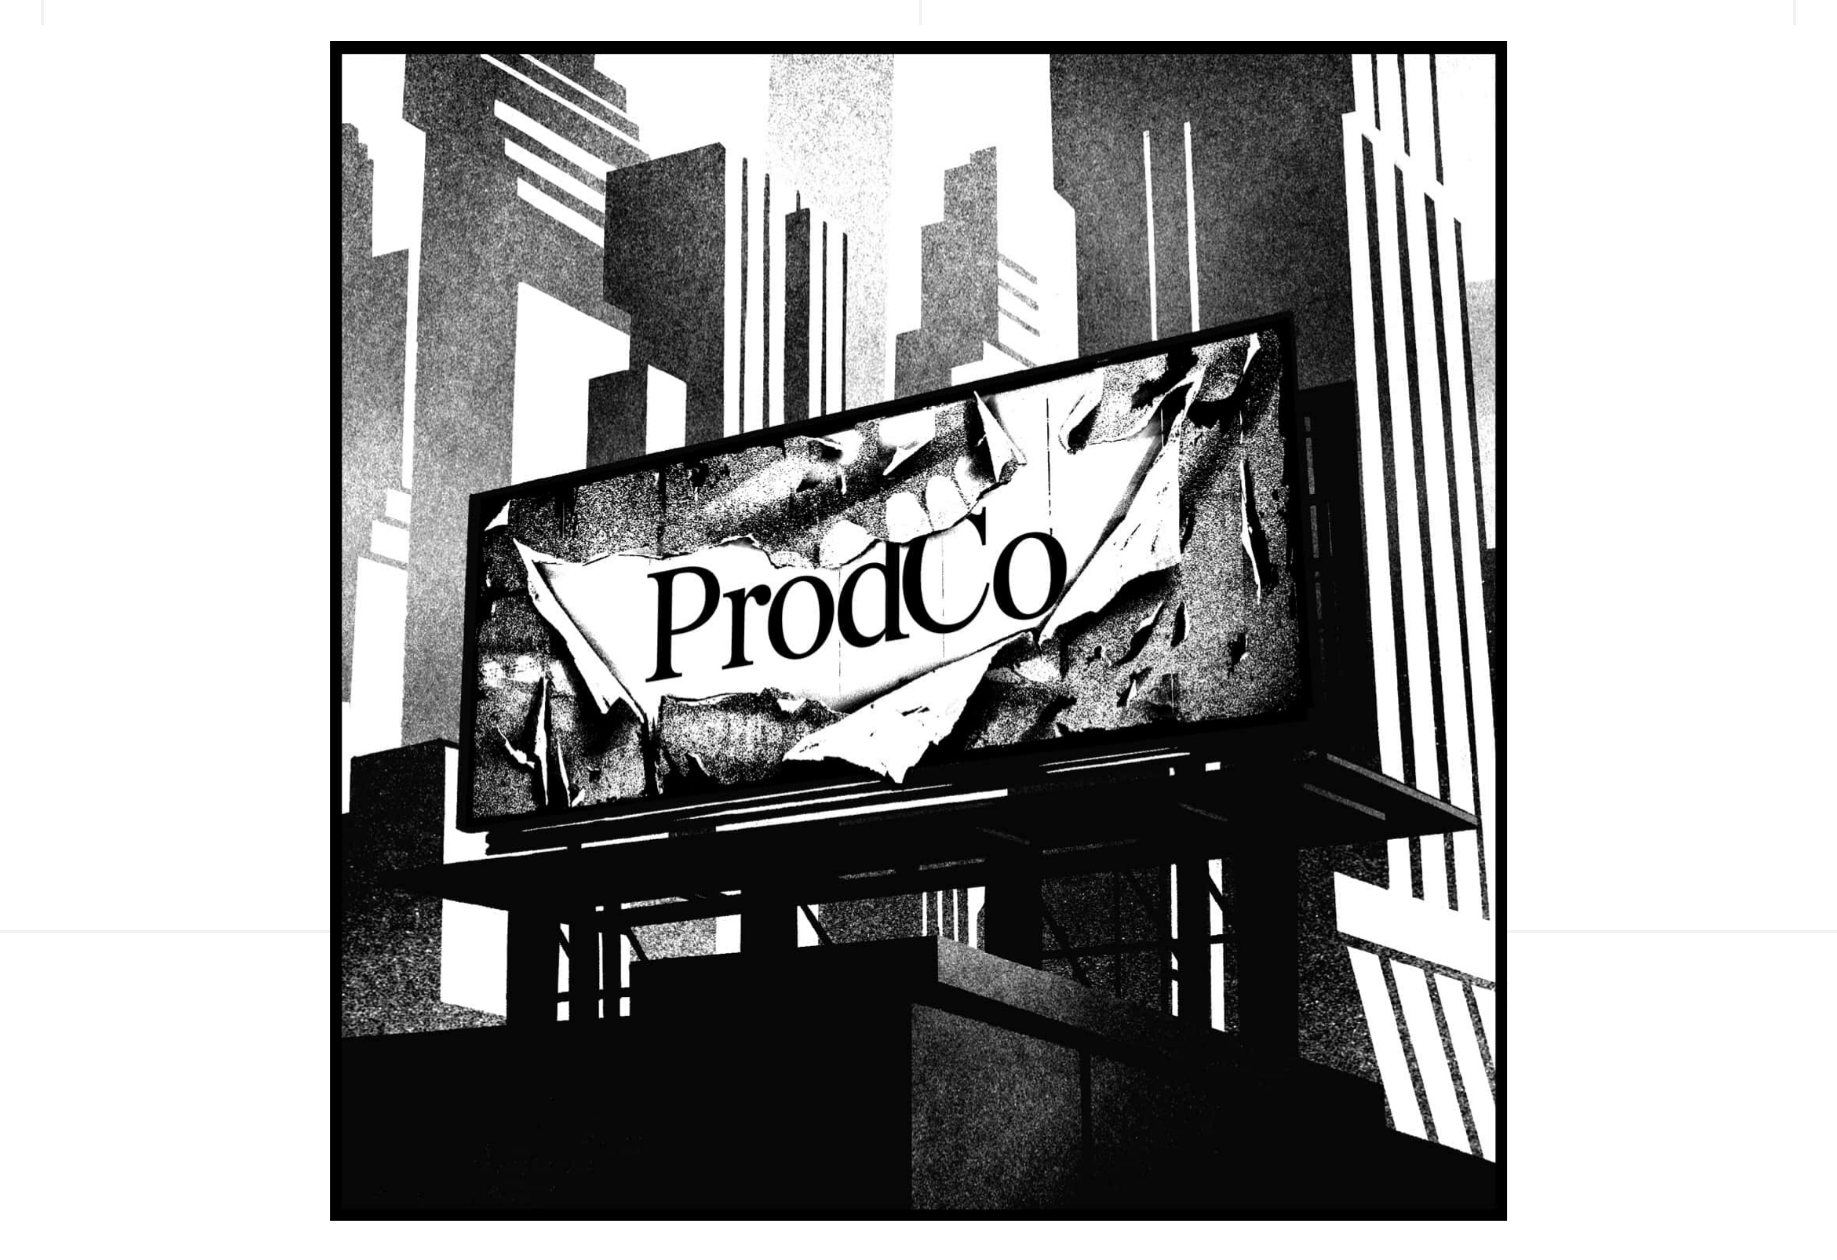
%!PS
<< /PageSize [1837 1260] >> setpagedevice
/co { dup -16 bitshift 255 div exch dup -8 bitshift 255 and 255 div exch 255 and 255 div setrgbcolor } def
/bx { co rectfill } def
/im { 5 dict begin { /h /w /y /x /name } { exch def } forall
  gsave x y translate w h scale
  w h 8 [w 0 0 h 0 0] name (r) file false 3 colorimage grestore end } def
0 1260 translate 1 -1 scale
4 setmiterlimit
0 0 1837 1260 16#FFFFFF bx
41 0 3 25 16#F2F2F2 bx
919 0 3 25 16#F2F2F2 bx
1793 0 3 25 16#F2F2F2 bx
0 930 1837 3 16#F2F2F2 bx
(media/1.raw) 330 41 1178 1180 im
showpage
